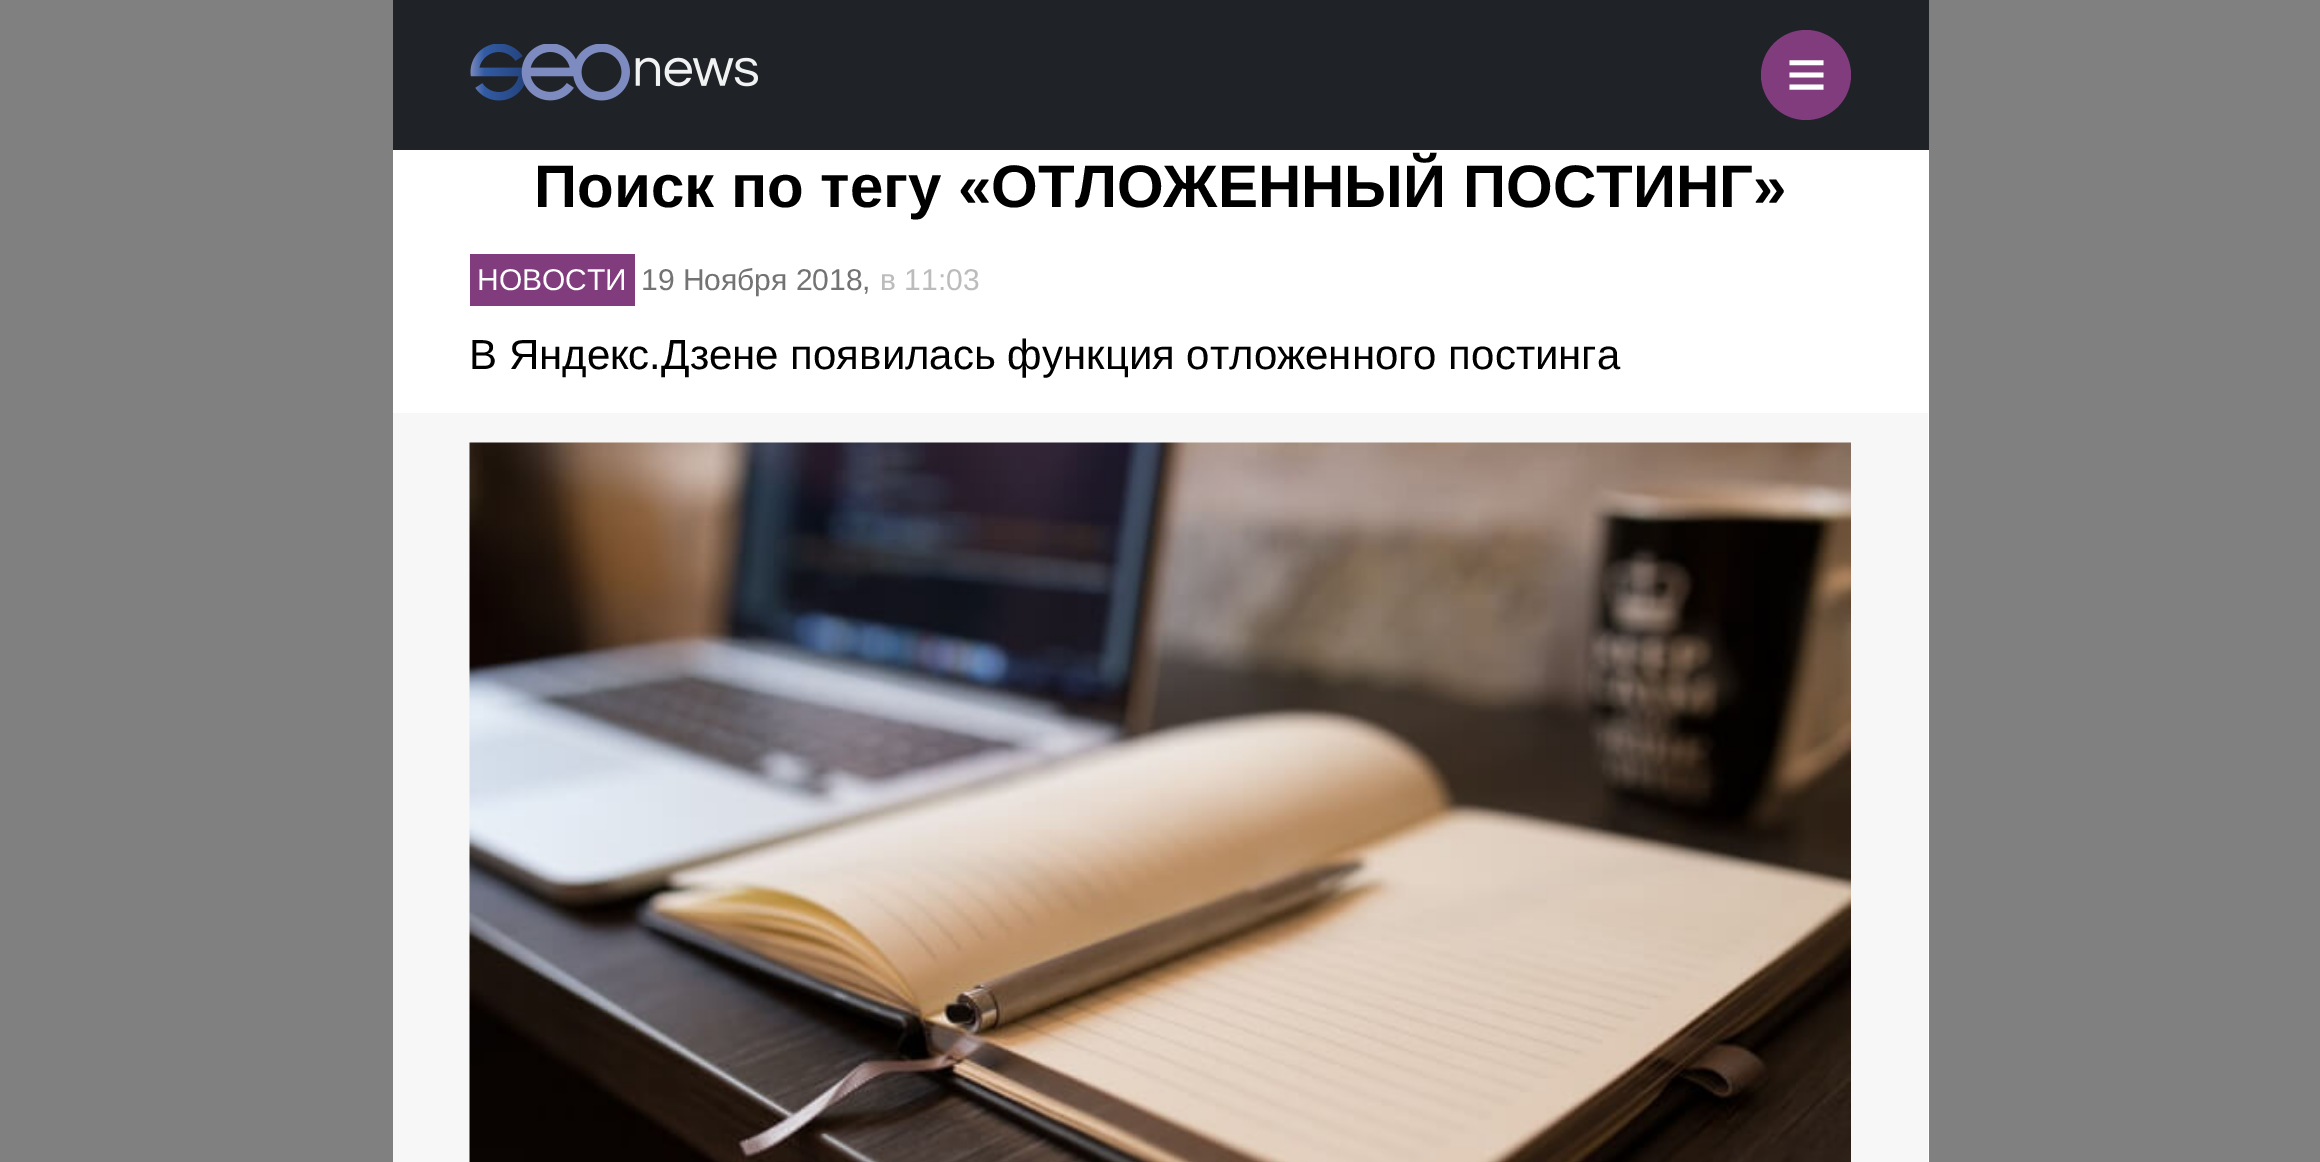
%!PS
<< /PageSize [2320 1162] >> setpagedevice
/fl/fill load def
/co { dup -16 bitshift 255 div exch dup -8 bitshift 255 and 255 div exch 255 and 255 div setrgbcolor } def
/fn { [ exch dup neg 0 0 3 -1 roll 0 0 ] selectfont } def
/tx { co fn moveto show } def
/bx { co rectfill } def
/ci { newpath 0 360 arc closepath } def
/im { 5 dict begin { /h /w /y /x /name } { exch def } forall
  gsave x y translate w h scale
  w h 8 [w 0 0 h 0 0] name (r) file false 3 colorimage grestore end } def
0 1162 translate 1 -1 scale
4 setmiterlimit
0 0 2320 1162 16#808080 bx
393 150 1536 1012 16#FFFFFF bx
393 0 1536 150 16#1F2226 bx
(media/1.raw) 470 44 288 57 im
16#813C7E co
1806 75 45 ci fl
470 254 165 52 16#813C7E bx
393 413 1535 749 16#F7F7F7 bx
(media/2.raw) 469 442 1382 720 im
(≡) 1786 98 /LiberationSans-Regular 70 16#FFFFFF tx
(Поиск по тегу «ОТЛОЖЕННЫЙ ПОСТИНГ») 534 207 /LiberationSans-Bold 60 16#000000 tx
(НОВОСТИ) 477 290 /LiberationSans-Regular 30 16#FFFFFF tx
(19 Ноября 2018,) 641 290 /LiberationSans-Regular 30 16#737373 tx
(в 11:03) 880 290 /LiberationSans-Regular 30 16#BCBCBC tx
(В Яндекс.Дзене появилась функция отложенного постинга) 469 369 /LiberationSans-Regular 42 16#000000 tx
showpage
